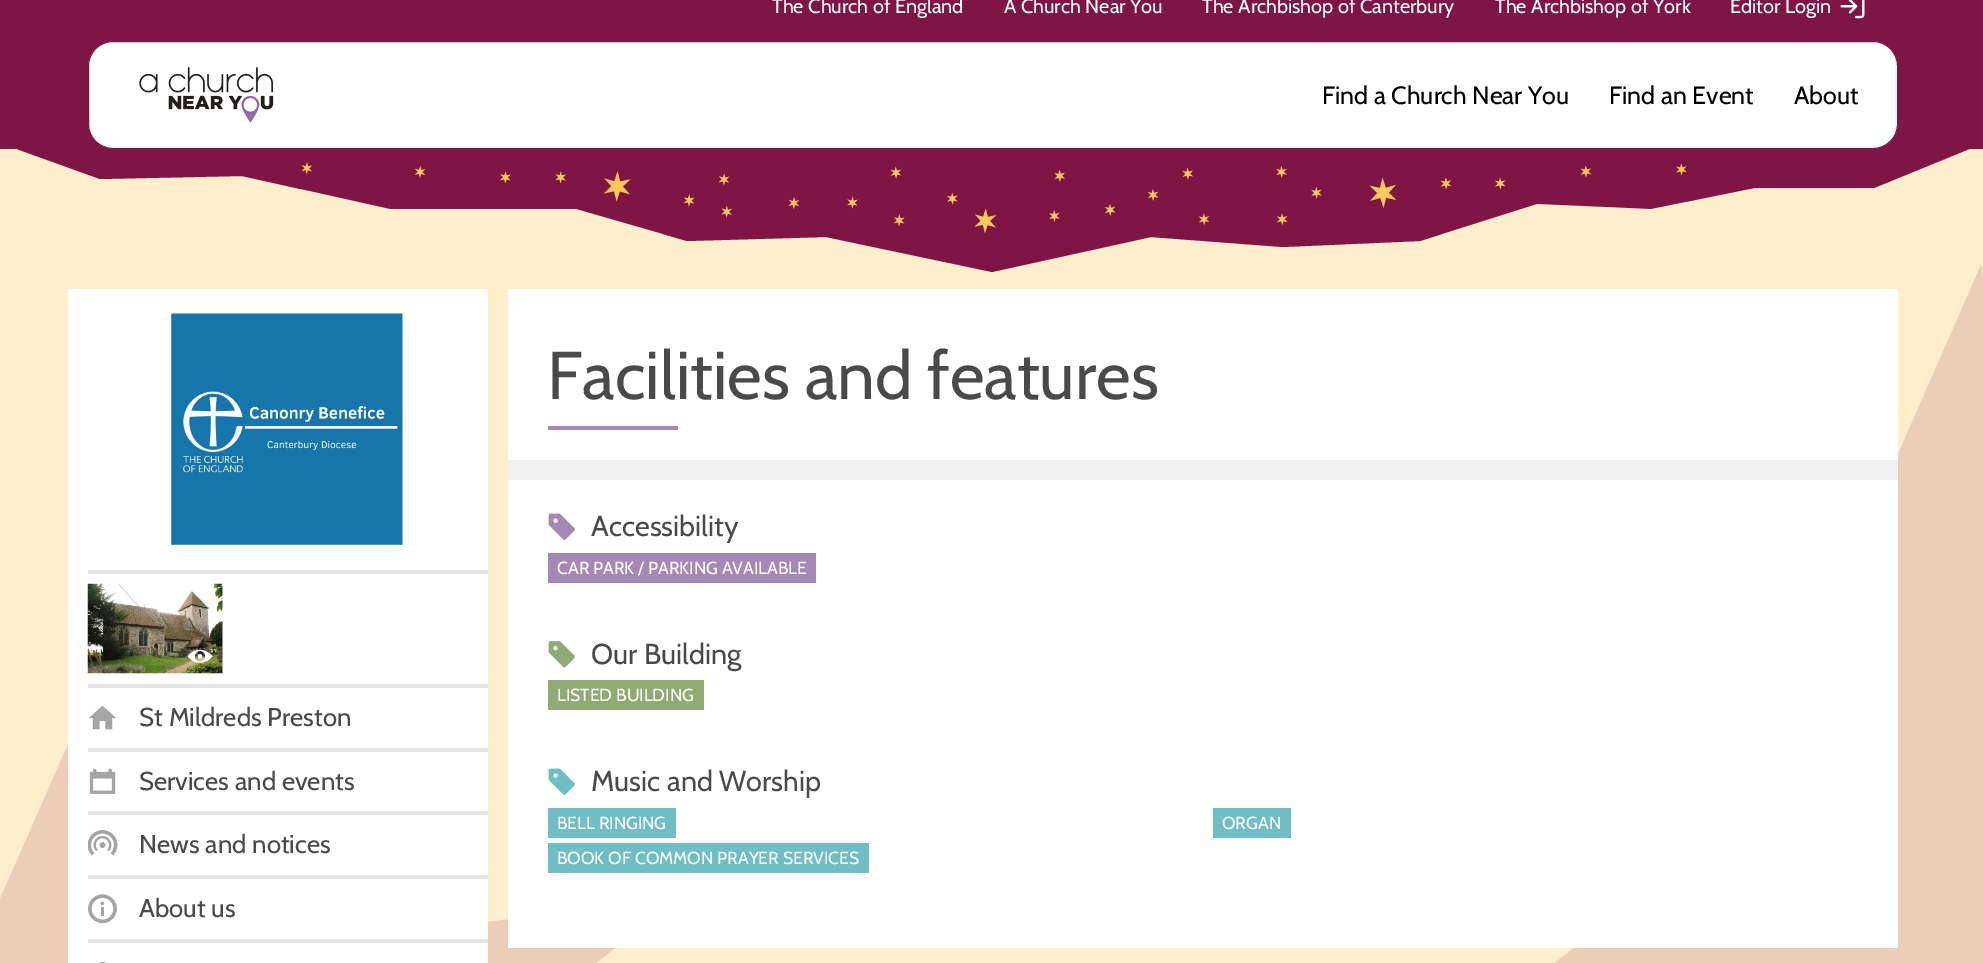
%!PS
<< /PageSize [1983 963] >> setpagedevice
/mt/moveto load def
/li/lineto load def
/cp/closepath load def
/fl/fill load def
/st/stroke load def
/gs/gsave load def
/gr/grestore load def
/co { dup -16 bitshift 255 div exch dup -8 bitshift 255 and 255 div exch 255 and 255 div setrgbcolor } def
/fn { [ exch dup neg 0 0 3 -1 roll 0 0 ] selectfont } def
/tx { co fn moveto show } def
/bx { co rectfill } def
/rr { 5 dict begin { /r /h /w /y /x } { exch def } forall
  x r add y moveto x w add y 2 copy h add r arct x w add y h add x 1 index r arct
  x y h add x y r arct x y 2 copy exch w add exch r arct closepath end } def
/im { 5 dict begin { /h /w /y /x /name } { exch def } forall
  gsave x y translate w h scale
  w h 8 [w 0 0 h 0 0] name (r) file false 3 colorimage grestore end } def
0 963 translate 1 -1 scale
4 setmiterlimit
0 0 1983 963 16#FFEECC bx
0 0 1983 149 16#7E1544 bx
(media/1.raw) 1840 0 25 19 im
16#ECCEB8 co
1796 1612 mt 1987 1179 li 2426 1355 li 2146 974 li 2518 681 li 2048 733 li 1981 265 li 1791 698 li 1351 522 li 1631 903 li 1259 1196 li 1729 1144 li cp fl
16#7E1544 co
242 176 mt 390 209 li 576 209 li 687 241 li 826 237 li 992 272 li 1151 237 li 1283 247 li 1420 241 li 1537 204 li 1651 209 li 1754 188 li 1874 188 li 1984 143 li 0 143 li 100 179 li cp fl
16#FFFFFF co
88.5 41.5 1809 107 24.5 rr gs fl gr
16#7E1544 co
st
(media/2.raw) 139 67 135 56 im
(media/3.raw) 301 162 1386 72 im
16#ECCDB8 co
-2 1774 mt 176 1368 li 588 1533 li 326 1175 li 675 901 li 234 950 li 171 511 li -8 917 li -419 752 li -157 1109 li -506 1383 li -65 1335 li cp fl
68 289 420 674 16#FFFFFF bx
(media/4.raw) 171 313 232 232 im
88 570 400 4 16#E4E4E4 bx
88 684 400 4 16#E4E4E4 bx
(media/5.raw) 87 583 136 91 im
(media/6.raw) 188 649 25 14 im
(media/7.raw) 88 705 29 25 im
88 748 400 4 16#E4E4E4 bx
(media/8.raw) 89 768 27 26 im
88 811 400 4 16#E4E4E4 bx
(media/9.raw) 88 830 30 26 im
88 875 400 4 16#E4E4E4 bx
(media/10.raw) 88 894 29 30 im
88 939 400 4 16#E4E4E4 bx
(media/11.raw) 99 962 7 1 im
508 289 1390 659 16#FFFFFF bx
548 426 130 4 16#A688B7 bx
508 460 1390 20 16#F1F1F1 bx
(media/12.raw) 548 513 27 27 im
548 553 268 30 16#A688B7 bx
(media/13.raw) 548 641 27 27 im
548 680 156 30 16#8FAB73 bx
(media/14.raw) 548 768 27 27 im
548 808 128 30 16#6FBEC6 bx
1213 808 78 30 16#6FBEC6 bx
548 843 321 30 16#6FBEC6 bx
(The Church of England) 772 13 /Cabin-Regular 20 16#FFFFFF tx
(A Church Near You) 1004 13 /Cabin-Regular 20 16#FFFFFF tx
(The Archbishop of Canterbury) 1202 13 /Cabin-Regular 20 16#FFFFFF tx
(The Archbishop of York) 1495 13 /Cabin-Regular 20 16#FFFFFF tx
(Editor Login) 1730 13 /Cabin-Regular 20 16#FFFFFF tx
(Find a Church Near You) 1322 104 /Cabin-Regular 25 16#000000 tx
(Find an Event) 1609 104 /Cabin-Regular 25 16#000000 tx
(About) 1794 104 /Cabin-Regular 25 16#000000 tx
(St Mildreds Preston) 139 726 /Cabin-Regular 25.75 16#4A4A4A tx
(Services and events) 139 790 /Cabin-Regular 25.75 16#4A4A4A tx
(News and notices) 139 853 /Cabin-Regular 25.75 16#4A4A4A tx
(About us) 139 917 /Cabin-Regular 25.75 16#4A4A4A tx
(Facilities and features) 547 399 /Cabin-Regular 67.5 16#4A4A4A tx
(Accessibility) 591 536 /Cabin-Regular 28.75 16#4A4A4A tx
(CAR PARK / PARKING AVAILABLE) 557 574 /Cabin-Regular 17.5 16#FFFFFF tx
(Our Building) 591 664 /Cabin-Regular 28.75 16#4A4A4A tx
(LISTED BUILDING) 557 701 /Cabin-Regular 17.5 16#FFFFFF tx
(Music and Worship) 591 791 /Cabin-Regular 28.75 16#4A4A4A tx
(BELL RINGING) 557 829 /Cabin-Regular 17.5 16#FFFFFF tx
(ORGAN) 1222 829 /Cabin-Regular 17.5 16#FFFFFF tx
(BOOK OF COMMON PRAYER SERVICES) 557 864 /Cabin-Regular 17.5 16#FFFFFF tx
showpage
